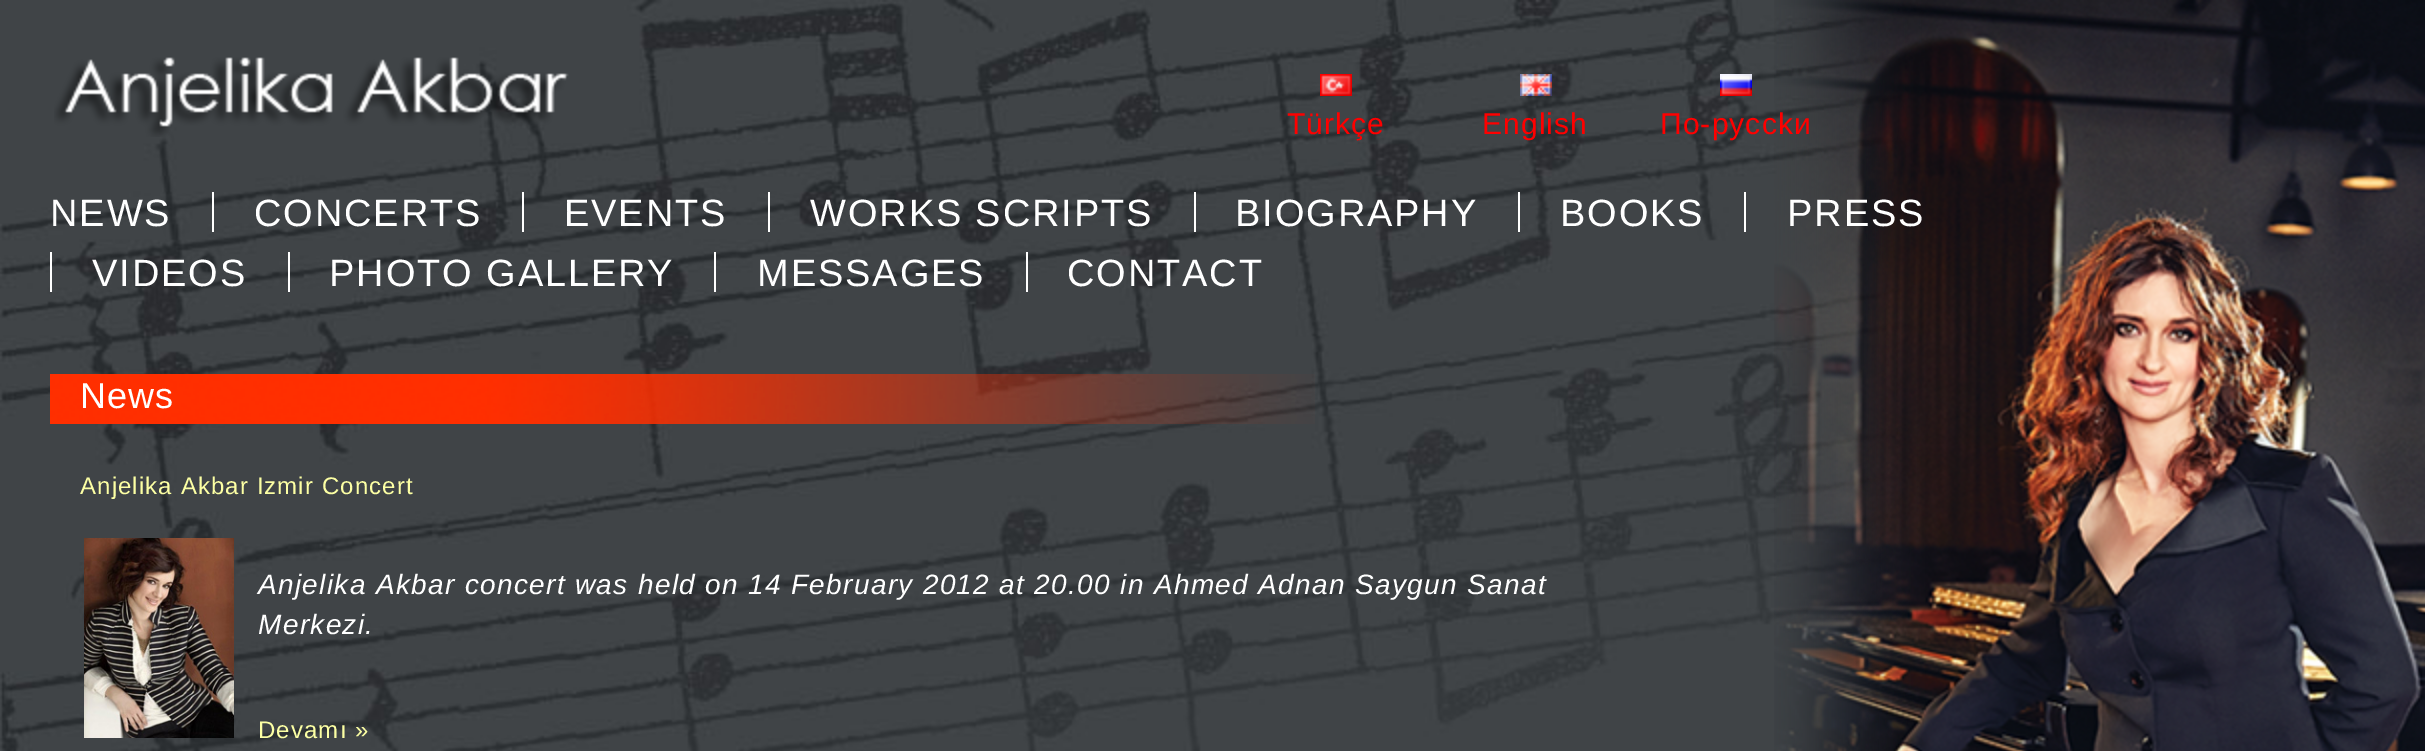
%!PS
<< /PageSize [2425 751] >> setpagedevice
/mt/moveto load def
/co { dup -16 bitshift 255 div exch dup -8 bitshift 255 and 255 div exch 255 and 255 div setrgbcolor } def
/fn { [ exch dup neg 0 0 3 -1 roll 0 0 ] selectfont } def
/bx { co rectfill } def
/im { 5 dict begin { /h /w /y /x /name } { exch def } forall
  gsave x y translate w h scale
  w h 8 [w 0 0 h 0 0] name (r) file false 3 colorimage grestore end } def
0 751 translate 1 -1 scale
4 setmiterlimit
0 0 2425 751 16#FFFFFF bx
(media/1.raw) 0 0 1931 751 im
(media/2.raw) 1774 0 651 751 im
(media/3.raw) 54 57 515 80 im
(media/4.raw) 1320 74 32 22 im
(media/5.raw) 1520 74 32 22 im
(media/6.raw) 1720 74 32 22 im
212 192 2 40 16#FFFFFF bx
522 192 2 40 16#FFFFFF bx
768 192 2 40 16#FFFFFF bx
1194 192 2 40 16#FFFFFF bx
1518 192 2 40 16#FFFFFF bx
1744 192 2 40 16#FFFFFF bx
50 252 2 40 16#FFFFFF bx
288 252 2 40 16#FFFFFF bx
714 252 2 40 16#FFFFFF bx
1026 252 2 40 16#FFFFFF bx
(media/7.raw) 50 374 1265 50 im
(media/8.raw) 84 538 150 200 im
/LiberationSans-Regular 30 fn
16#FF0000 co
1287 134 mt 1.1 0 (Türkçe) ashow
1482 134 mt 1.1 0 (English) ashow
1660 134 mt 1.1 0 (Пo-pycckи) ashow
/LiberationSans-Regular 38 fn
16#FFFFFF co
50 226 mt 1.9 0 (NEWS) ashow
254 226 mt 1.9 0 (CONCERTS) ashow
564 226 mt 1.9 0 (EVENTS) ashow
810 226 mt 1.9 0 (WORKS SCRIPTS) ashow
1235 226 mt 1.9 0 (BIOGRAPHY) ashow
1560 226 mt 1.9 0 (BOOKS) ashow
1787 226 mt 1.9 0 (PRESS) ashow
92 286 mt 1.9 0 (VIDEOS) ashow
329 286 mt 1.9 0 (PHOTO GALLERY) ashow
757 286 mt 1.9 0 (MESSAGES) ashow
1067 286 mt 1.9 0 (CONTACT) ashow
/LiberationSans-Regular 36 fn
80 408 mt 1.1 0 (News) ashow
/LiberationSans-Regular 24 fn
16#FCFFA4 co
80 494 mt 1.1 0 (Anjelika Akbar Izmir Concert) ashow
/LiberationSans-Italic 28 fn
16#FFFFFF co
258 594 mt 1.33 0 (Anjelika Akbar concert was held on 14 February 2012 at 20.00 in Ahmed Adnan Saygun Sanat) ashow
258 634 mt 1.33 0 (Merkezi.) ashow
/LiberationSans-Regular 24 fn
16#FCFFA4 co
258 738 mt 1.1 0 (Devamı ») ashow
showpage
